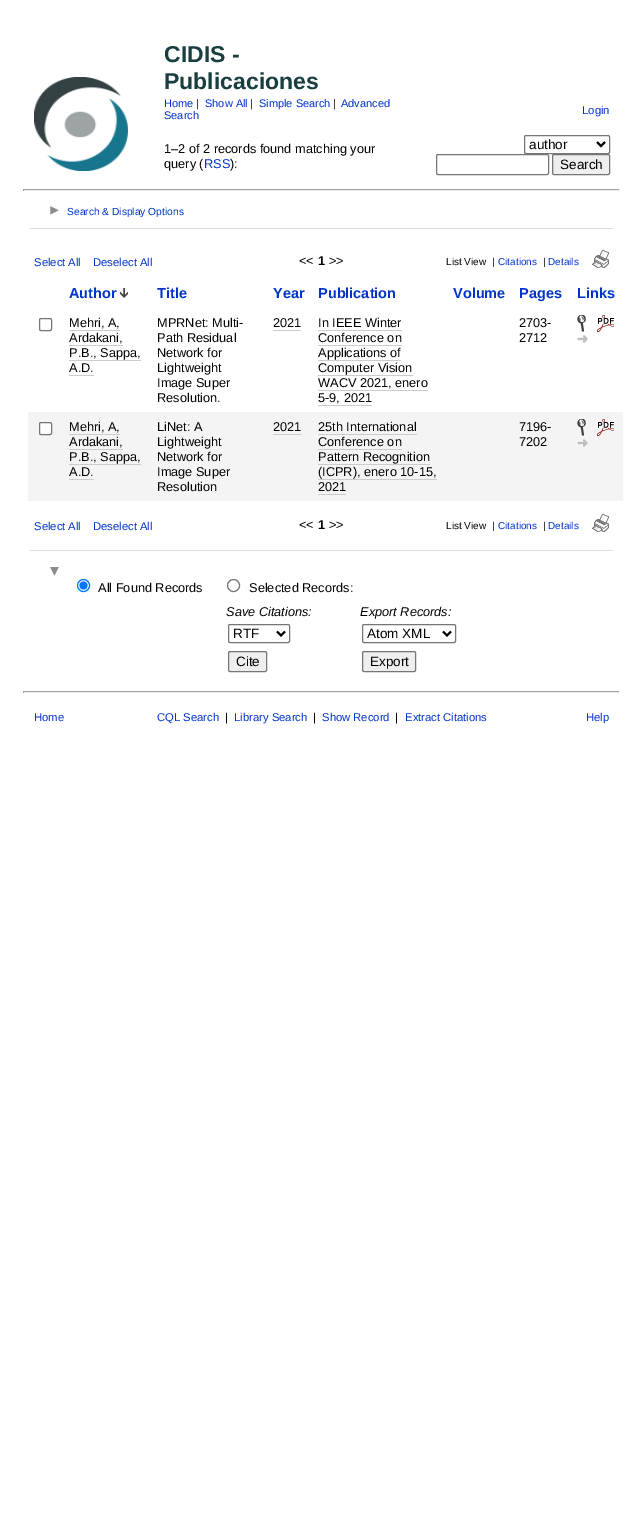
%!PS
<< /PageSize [643 1526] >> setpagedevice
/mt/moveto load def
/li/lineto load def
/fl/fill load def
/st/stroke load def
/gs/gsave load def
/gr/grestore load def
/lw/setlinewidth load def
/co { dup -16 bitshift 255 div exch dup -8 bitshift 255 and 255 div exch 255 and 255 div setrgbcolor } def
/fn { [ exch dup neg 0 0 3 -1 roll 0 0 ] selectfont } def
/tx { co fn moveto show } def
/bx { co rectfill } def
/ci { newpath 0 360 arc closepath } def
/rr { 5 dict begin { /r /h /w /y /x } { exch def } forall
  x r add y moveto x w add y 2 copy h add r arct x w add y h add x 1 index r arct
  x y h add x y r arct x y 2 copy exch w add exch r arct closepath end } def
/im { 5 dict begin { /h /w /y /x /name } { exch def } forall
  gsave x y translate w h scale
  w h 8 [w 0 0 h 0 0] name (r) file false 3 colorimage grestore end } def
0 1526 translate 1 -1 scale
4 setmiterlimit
0 0 643 1526 16#FFFFFF bx
(media/1.raw) 34 77 94 94 im
16#767676 co
524.5 135.5 85 18 1.5 rr st
16#000000 co
2 lw
597 142 mt 601 146 li 605 142 li st
16#767676 co
1 lw
436.5 154.5 112 20 1.5 rr st
16#EFEFEF co
552.5 154.5 57 20 1.5 rr gs fl gr
16#767676 co
st
23 189 597 1 16#9F9F9F bx
619 189 1 2 16#EEEEEE bx
23 190 597 1 16#EEEEEE bx
23 189 1 2 16#9F9F9F bx
(media/2.raw) 50 206 9 9 im
30 228 583 1 16#DEDEDE bx
(media/3.raw) 592 250 17 18 im
(media/4.raw) 120 288 8 10 im
16#767676 co
39.5 318.5 12 12 1.5 rr st
69 330 51 1 16#CCCCCC bx
69 345 54 1 16#CCCCCC bx
69 360 72 1 16#CCCCCC bx
69 375 25 1 16#CCCCCC bx
273 330 28 1 16#CCCCCC bx
318 330 84 1 16#CCCCCC bx
318 345 84 1 16#CCCCCC bx
318 360 83 1 16#CCCCCC bx
318 375 95 1 16#CCCCCC bx
318 390 110 1 16#CCCCCC bx
318 405 54 1 16#CCCCCC bx
(media/5.raw) 577 315 9 17 im
(media/6.raw) 597 315 17 17 im
(media/7.raw) 577 335 11 8 im
28 412 595 89 16#F4F4F4 bx
16#FFFFFF co
39.5 422.5 12 12 1.5 rr gs fl gr
16#767676 co
st
69 434 51 1 16#CCCCCC bx
69 449 54 1 16#CCCCCC bx
69 464 72 1 16#CCCCCC bx
69 479 25 1 16#CCCCCC bx
273 434 28 1 16#CCCCCC bx
318 434 99 1 16#CCCCCC bx
318 449 84 1 16#CCCCCC bx
318 464 112 1 16#CCCCCC bx
318 479 119 1 16#CCCCCC bx
318 494 28 1 16#CCCCCC bx
(media/8.raw) 577 419 9 17 im
(media/9.raw) 597 419 17 17 im
(media/10.raw) 577 439 11 8 im
(media/3.raw) 592 514 17 18 im
30 550 583 1 16#DEDEDE bx
(media/11.raw) 50 567 9 9 im
16#0075FF co
83.5 585.5 6 ci st
83.5 585.5 4 ci fl
16#767676 co
233.5 585.5 6 ci st
228.5 624.5 61 18 1.5 rr st
16#000000 co
2 lw
277 631.5 mt 281 635.5 li 285 631.5 li st
16#EFEFEF co
228.5 651.5 38 20 1.5 rr gs fl gr
16#767676 co
1 lw
st
362.5 624.5 93 18 1.5 rr st
16#000000 co
2 lw
443 631.5 mt 447 635.5 li 451 631.5 li st
16#EFEFEF co
362.5 651.5 53 20 1.5 rr gs fl gr
16#767676 co
1 lw
st
23 691 597 1 16#9F9F9F bx
619 691 1 2 16#EEEEEE bx
23 692 597 1 16#EEEEEE bx
23 691 1 2 16#9F9F9F bx
(CIDIS -) 164 62 /LiberationSans-Bold 23 16#183E40 tx
(Publicaciones) 164 89 /LiberationSans-Bold 23 16#183E40 tx
(Home) 164 107 /LiberationSans-Regular 11 16#0033CC tx
(|) 196 107 /LiberationSans-Regular 11 16#000000 tx
(Show All) 205 107 /LiberationSans-Regular 11 16#0033CC tx
(|) 250 107 /LiberationSans-Regular 11 16#000000 tx
(Simple Search) 259 107 /LiberationSans-Regular 11 16#0033CC tx
(|) 333 107 /LiberationSans-Regular 11 16#000000 tx
(Advanced) 341 107 /LiberationSans-Regular 11 16#0033CC tx
(Search) 164 119 /LiberationSans-Regular 11 16#0033CC tx
(Login) 582 114 /LiberationSans-Regular 11.25 16#0033CC tx
(author) 529 149 /LiberationSans-Regular 13.5 16#000000 tx
(Search) 560 169 /LiberationSans-Regular 13.5 16#000000 tx
(1–2 of 2 records found matching your) 164 153 /LiberationSans-Regular 12.75 16#000000 tx
(query \() 164 168 /LiberationSans-Regular 12.75 16#000000 tx
(RSS) 204 168 /LiberationSans-Regular 12.75 16#0033CC tx
(\):) 230 168 /LiberationSans-Regular 12.75 16#000000 tx
(Search & Display Options) 67 215 /LiberationSans-Regular 10.25 16#0033CC tx
(Select All) 34 266 /LiberationSans-Regular 11.25 16#0033CC tx
(Deselect All) 93 266 /LiberationSans-Regular 11.25 16#0033CC tx
(<<) 299 265 /LiberationSans-Regular 12.75 16#000000 tx
(1) 318 265 /LiberationSans-Bold 12.75 16#000000 tx
(>>) 329 265 /LiberationSans-Regular 12.75 16#000000 tx
(List View) 446 265 /LiberationSans-Regular 10 16#000000 tx
(|) 492 265 /LiberationSans-Regular 10 16#000000 tx
(Citations) 498 265 /LiberationSans-Regular 10 16#0033CC tx
(|) 543 265 /LiberationSans-Regular 10 16#000000 tx
(Details) 548 265 /LiberationSans-Regular 10 16#0033CC tx
(Author) 69 298 /LiberationSans-Bold 14.5 16#0033CC tx
(Title) 157 298 /LiberationSans-Bold 14.5 16#0033CC tx
(Year) 273 298 /LiberationSans-Bold 14.5 16#0033CC tx
(Publication) 318 298 /LiberationSans-Bold 14.5 16#0033CC tx
(Volume) 453 298 /LiberationSans-Bold 14.5 16#0033CC tx
(Pages) 519 298 /LiberationSans-Bold 14.5 16#0033CC tx
(Links) 577 298 /LiberationSans-Bold 14.5 16#0033CC tx
(Mehri, A,) 69 327 /LiberationSans-Regular 12.75 16#000000 tx
(Ardakani,) 69 342 /LiberationSans-Regular 12.75 16#000000 tx
(P.B., Sappa,) 69 357 /LiberationSans-Regular 12.75 16#000000 tx
(A.D.) 69 372 /LiberationSans-Regular 12.75 16#000000 tx
(MPRNet: Multi-) 157 327 /LiberationSans-Regular 12.75 16#000000 tx
(Path Residual) 157 342 /LiberationSans-Regular 12.75 16#000000 tx
(Network for) 157 357 /LiberationSans-Regular 12.75 16#000000 tx
(Lightweight) 157 372 /LiberationSans-Regular 12.75 16#000000 tx
(Image Super) 157 387 /LiberationSans-Regular 12.75 16#000000 tx
(Resolution.) 157 402 /LiberationSans-Regular 12.75 16#000000 tx
(2021) 273 327 /LiberationSans-Regular 12.75 16#000000 tx
(In IEEE Winter) 318 327 /LiberationSans-Regular 12.75 16#000000 tx
(Conference on) 318 342 /LiberationSans-Regular 12.75 16#000000 tx
(Applications of) 318 357 /LiberationSans-Regular 12.75 16#000000 tx
(Computer Vision) 318 372 /LiberationSans-Regular 12.75 16#000000 tx
(WACV 2021, enero) 318 387 /LiberationSans-Regular 12.75 16#000000 tx
(5-9, 2021) 318 402 /LiberationSans-Regular 12.75 16#000000 tx
(2703-) 519 327 /LiberationSans-Regular 12.75 16#000000 tx
(2712) 519 342 /LiberationSans-Regular 12.75 16#000000 tx
(Mehri, A,) 69 431 /LiberationSans-Regular 12.75 16#000000 tx
(Ardakani,) 69 446 /LiberationSans-Regular 12.75 16#000000 tx
(P.B., Sappa,) 69 461 /LiberationSans-Regular 12.75 16#000000 tx
(A.D.) 69 476 /LiberationSans-Regular 12.75 16#000000 tx
(LiNet: A) 157 431 /LiberationSans-Regular 12.75 16#000000 tx
(Lightweight) 157 446 /LiberationSans-Regular 12.75 16#000000 tx
(Network for) 157 461 /LiberationSans-Regular 12.75 16#000000 tx
(Image Super) 157 476 /LiberationSans-Regular 12.75 16#000000 tx
(Resolution) 157 491 /LiberationSans-Regular 12.75 16#000000 tx
(2021) 273 431 /LiberationSans-Regular 12.75 16#000000 tx
(25th International) 318 431 /LiberationSans-Regular 12.75 16#000000 tx
(Conference on) 318 446 /LiberationSans-Regular 12.75 16#000000 tx
(Pattern Recognition) 318 461 /LiberationSans-Regular 12.75 16#000000 tx
(\(ICPR\), enero 10-15,) 318 476 /LiberationSans-Regular 12.75 16#000000 tx
(2021) 318 491 /LiberationSans-Regular 12.75 16#000000 tx
(7196-) 519 431 /LiberationSans-Regular 12.75 16#000000 tx
(7202) 519 446 /LiberationSans-Regular 12.75 16#000000 tx
(Select All) 34 530 /LiberationSans-Regular 11.25 16#0033CC tx
(Deselect All) 93 530 /LiberationSans-Regular 11.25 16#0033CC tx
(<<) 299 529 /LiberationSans-Regular 12.75 16#000000 tx
(1) 318 529 /LiberationSans-Bold 12.75 16#000000 tx
(>>) 329 529 /LiberationSans-Regular 12.75 16#000000 tx
(List View) 446 529 /LiberationSans-Regular 10 16#000000 tx
(|) 492 529 /LiberationSans-Regular 10 16#000000 tx
(Citations) 498 529 /LiberationSans-Regular 10 16#0033CC tx
(|) 543 529 /LiberationSans-Regular 10 16#000000 tx
(Details) 548 529 /LiberationSans-Regular 10 16#0033CC tx
(All Found Records) 98 592 /LiberationSans-Regular 12.75 16#000000 tx
(Selected Records:) 249 592 /LiberationSans-Regular 12.75 16#000000 tx
(Save Citations:) 226 616 /LiberationSans-Italic 12.75 16#000000 tx
(RTF) 233 638 /LiberationSans-Regular 13.5 16#000000 tx
(Cite) 236 666 /LiberationSans-Regular 13.5 16#000000 tx
(Export Records:) 360 616 /LiberationSans-Italic 12.75 16#000000 tx
(Atom XML) 367 638 /LiberationSans-Regular 13.5 16#000000 tx
(Export) 370 666 /LiberationSans-Regular 13.5 16#000000 tx
(Home) 34 721 /LiberationSans-Regular 11.25 16#0033CC tx
(CQL Search) 157 721 /LiberationSans-Regular 11.25 16#0033CC tx
(|) 225 721 /LiberationSans-Regular 11.25 16#000000 tx
(Library Search) 234 721 /LiberationSans-Regular 11.25 16#0033CC tx
(|) 313 721 /LiberationSans-Regular 11.25 16#000000 tx
(Show Record) 322 721 /LiberationSans-Regular 11.25 16#0033CC tx
(|) 395 721 /LiberationSans-Regular 11.25 16#000000 tx
(Extract Citations) 405 721 /LiberationSans-Regular 11.25 16#0033CC tx
(Help) 586 721 /LiberationSans-Regular 11.25 16#0033CC tx
showpage
